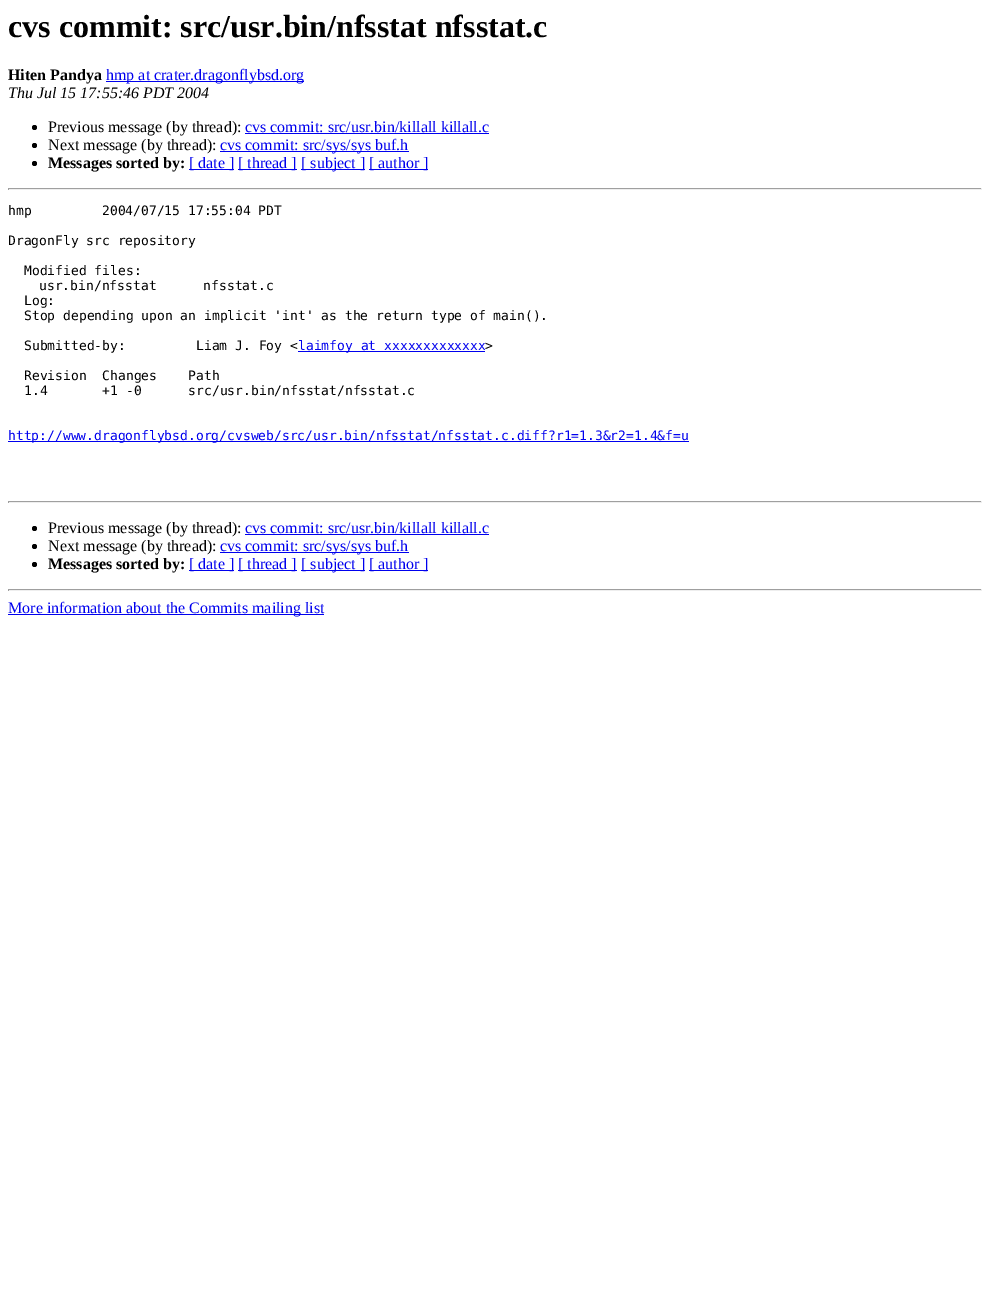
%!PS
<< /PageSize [990 1309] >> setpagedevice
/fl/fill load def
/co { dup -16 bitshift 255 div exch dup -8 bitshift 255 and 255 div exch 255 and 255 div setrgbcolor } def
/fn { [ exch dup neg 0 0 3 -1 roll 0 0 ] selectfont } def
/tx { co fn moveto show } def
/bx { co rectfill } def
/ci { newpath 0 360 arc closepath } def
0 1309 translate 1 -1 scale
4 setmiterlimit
0 0 990 1309 16#FFFFFF bx
106 81 198 1 16#0000EE bx
16#000000 co
34.5 127.5 2.5 ci fl
245 133 244 1 16#0000EE bx
16#000000 co
34.5 145.5 2.5 ci fl
220 151 189 1 16#0000EE bx
16#000000 co
34.5 163.5 2.5 ci fl
189 169 45 1 16#0000EE bx
238 169 59 1 16#0000EE bx
301 169 64 1 16#0000EE bx
369 169 59 1 16#0000EE bx
8 188 974 1 16#9F9F9F bx
981 188 1 2 16#EEEEEE bx
8 189 974 1 16#EEEEEE bx
8 188 1 2 16#9F9F9F bx
298 351 187 1 16#0000EE bx
8 441 681 1 16#0000EE bx
8 501 974 1 16#9F9F9F bx
981 501 1 2 16#EEEEEE bx
8 502 974 1 16#EEEEEE bx
8 501 1 2 16#9F9F9F bx
16#000000 co
34.5 528.5 2.5 ci fl
245 534 244 1 16#0000EE bx
16#000000 co
34.5 546.5 2.5 ci fl
220 552 189 1 16#0000EE bx
16#000000 co
34.5 564.5 2.5 ci fl
189 570 45 1 16#0000EE bx
238 570 59 1 16#0000EE bx
301 570 64 1 16#0000EE bx
369 570 59 1 16#0000EE bx
8 589 974 1 16#9F9F9F bx
981 589 1 2 16#EEEEEE bx
8 590 974 1 16#EEEEEE bx
8 589 1 2 16#9F9F9F bx
8 614 316 1 16#0000EE bx
(cvs commit: src/usr.bin/nfsstat nfsstat.c) 8 37 /LiberationSerif-Bold 32 16#000000 tx
(Hiten Pandya) 8 80 /LiberationSerif-Bold 16 16#000000 tx
(hmp at crater.dragonflybsd.org) 106 80 /LiberationSerif-Regular 16 16#0000EE tx
(Thu Jul 15 17:55:46 PDT 2004) 8 98 /LiberationSerif-Italic 16 16#000000 tx
(Previous message \(by thread\):) 48 132 /LiberationSerif-Regular 16 16#000000 tx
(cvs commit: src/usr.bin/killall killall.c) 245 132 /LiberationSerif-Regular 16 16#0000EE tx
(Next message \(by thread\):) 48 150 /LiberationSerif-Regular 16 16#000000 tx
(cvs commit: src/sys/sys buf.h) 220 150 /LiberationSerif-Regular 16 16#0000EE tx
(Messages sorted by:) 48 168 /LiberationSerif-Bold 16 16#000000 tx
([ date ]) 189 168 /LiberationSerif-Regular 16 16#0000EE tx
([ thread ]) 238 168 /LiberationSerif-Regular 16 16#0000EE tx
([ subject ]) 301 168 /LiberationSerif-Regular 16 16#0000EE tx
([ author ]) 369 168 /LiberationSerif-Regular 16 16#0000EE tx
(hmp         2004/07/15 17:55:04 PDT) 8 215 /DejaVuSansMono-Regular 13 16#000000 tx
(DragonFly src repository) 8 245 /DejaVuSansMono-Regular 13 16#000000 tx
(Modified files:) 24 275 /DejaVuSansMono-Regular 13 16#000000 tx
(usr.bin/nfsstat      nfsstat.c) 39 290 /DejaVuSansMono-Regular 13 16#000000 tx
(Log:) 24 305 /DejaVuSansMono-Regular 13 16#000000 tx
(Stop depending upon an implicit 'int' as the return type of main\(\).) 24 320 /DejaVuSansMono-Regular 13 16#000000 tx
(Submitted-by:) 24 350 /DejaVuSansMono-Regular 13 16#000000 tx
(Liam J. Foy <) 196 350 /DejaVuSansMono-Regular 13 16#000000 tx
(laimfoy at xxxxxxxxxxxxx) 298 350 /DejaVuSansMono-Regular 13 16#0000EE tx
(>) 485 350 /DejaVuSansMono-Regular 13 16#000000 tx
(Revision  Changes    Path) 24 380 /DejaVuSansMono-Regular 13 16#000000 tx
(1.4       +1 -0      src/usr.bin/nfsstat/nfsstat.c) 24 395 /DejaVuSansMono-Regular 13 16#000000 tx
(http://www.dragonflybsd.org/cvsweb/src/usr.bin/nfsstat/nfsstat.c.diff?r1=1.3&r2=1.4&f=u) 8 440 /DejaVuSansMono-Regular 13 16#0000EE tx
(Previous message \(by thread\):) 48 533 /LiberationSerif-Regular 16 16#000000 tx
(cvs commit: src/usr.bin/killall killall.c) 245 533 /LiberationSerif-Regular 16 16#0000EE tx
(Next message \(by thread\):) 48 551 /LiberationSerif-Regular 16 16#000000 tx
(cvs commit: src/sys/sys buf.h) 220 551 /LiberationSerif-Regular 16 16#0000EE tx
(Messages sorted by:) 48 569 /LiberationSerif-Bold 16 16#000000 tx
([ date ]) 189 569 /LiberationSerif-Regular 16 16#0000EE tx
([ thread ]) 238 569 /LiberationSerif-Regular 16 16#0000EE tx
([ subject ]) 301 569 /LiberationSerif-Regular 16 16#0000EE tx
([ author ]) 369 569 /LiberationSerif-Regular 16 16#0000EE tx
(More information about the Commits mailing list) 8 613 /LiberationSerif-Regular 16 16#0000EE tx
showpage
